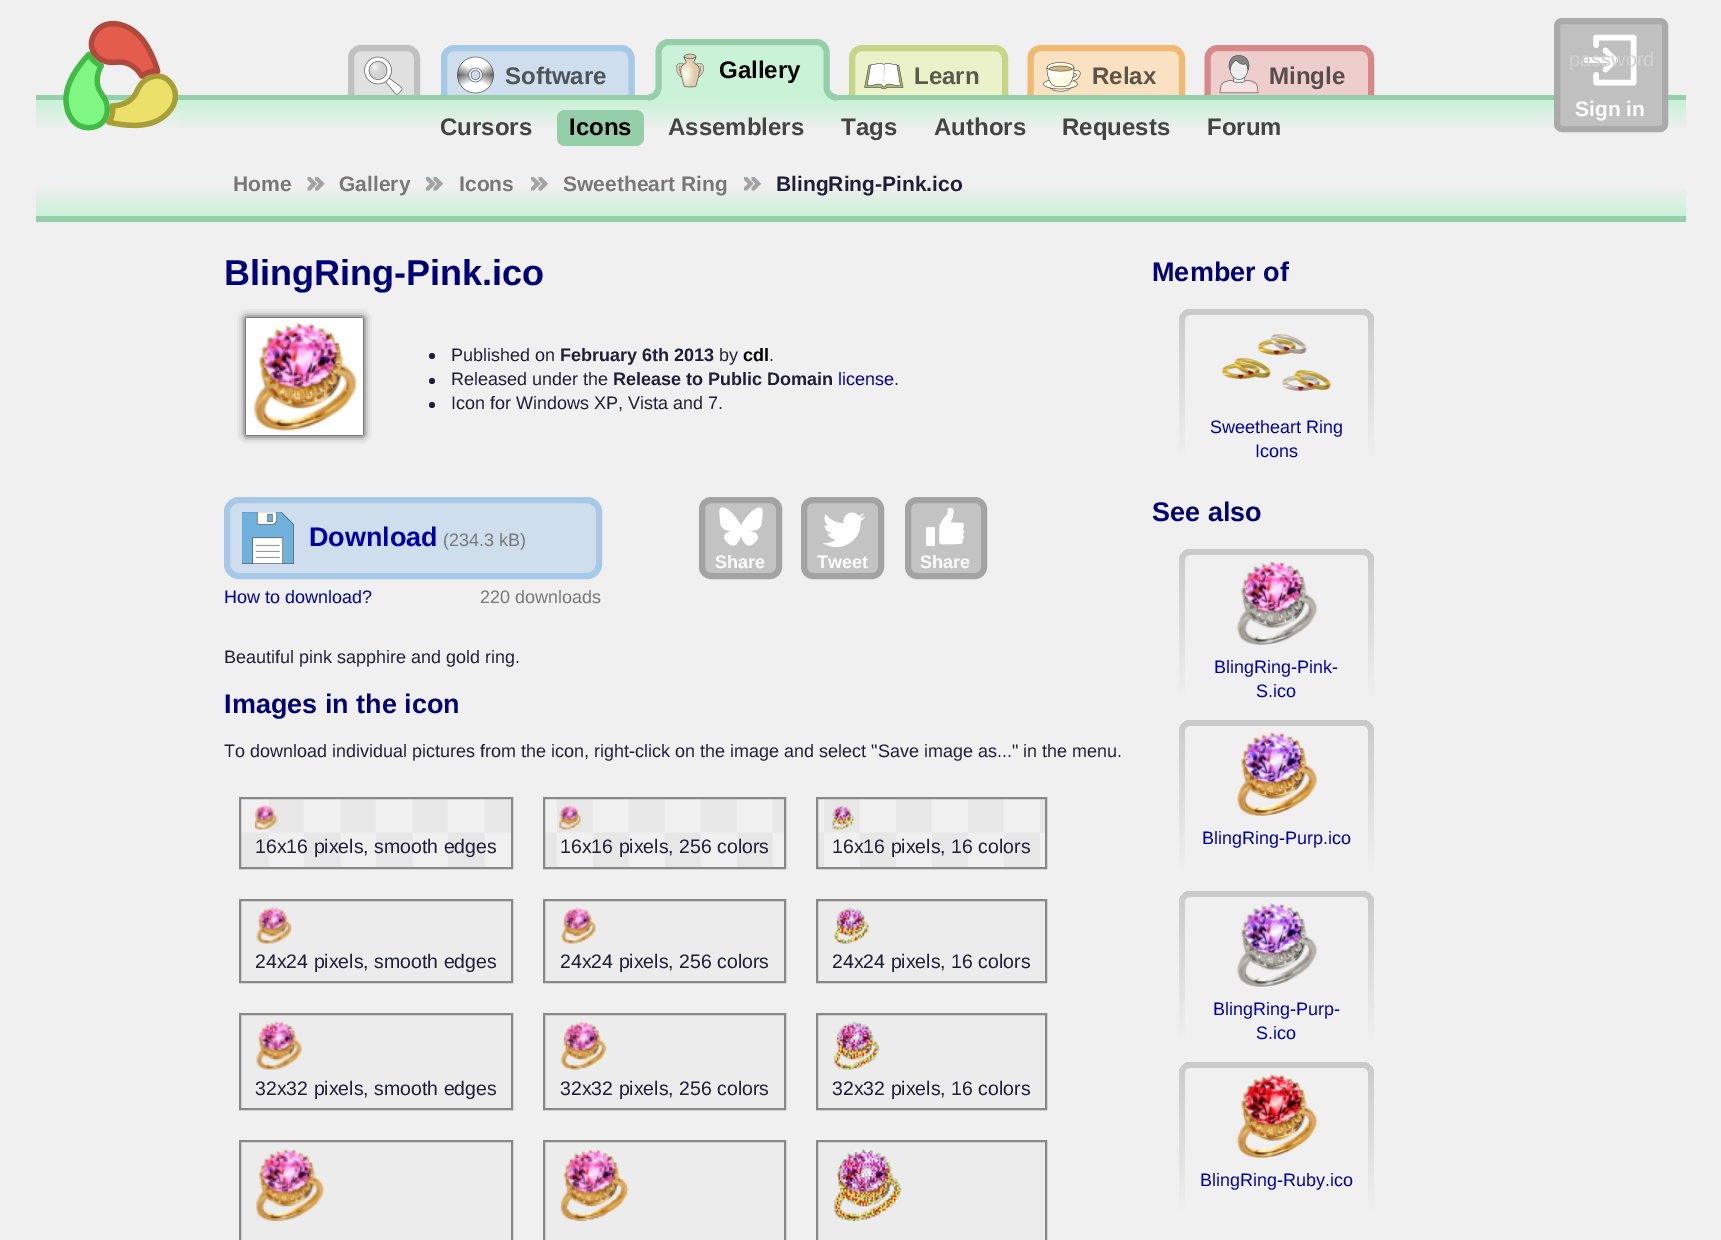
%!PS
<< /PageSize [1721 1240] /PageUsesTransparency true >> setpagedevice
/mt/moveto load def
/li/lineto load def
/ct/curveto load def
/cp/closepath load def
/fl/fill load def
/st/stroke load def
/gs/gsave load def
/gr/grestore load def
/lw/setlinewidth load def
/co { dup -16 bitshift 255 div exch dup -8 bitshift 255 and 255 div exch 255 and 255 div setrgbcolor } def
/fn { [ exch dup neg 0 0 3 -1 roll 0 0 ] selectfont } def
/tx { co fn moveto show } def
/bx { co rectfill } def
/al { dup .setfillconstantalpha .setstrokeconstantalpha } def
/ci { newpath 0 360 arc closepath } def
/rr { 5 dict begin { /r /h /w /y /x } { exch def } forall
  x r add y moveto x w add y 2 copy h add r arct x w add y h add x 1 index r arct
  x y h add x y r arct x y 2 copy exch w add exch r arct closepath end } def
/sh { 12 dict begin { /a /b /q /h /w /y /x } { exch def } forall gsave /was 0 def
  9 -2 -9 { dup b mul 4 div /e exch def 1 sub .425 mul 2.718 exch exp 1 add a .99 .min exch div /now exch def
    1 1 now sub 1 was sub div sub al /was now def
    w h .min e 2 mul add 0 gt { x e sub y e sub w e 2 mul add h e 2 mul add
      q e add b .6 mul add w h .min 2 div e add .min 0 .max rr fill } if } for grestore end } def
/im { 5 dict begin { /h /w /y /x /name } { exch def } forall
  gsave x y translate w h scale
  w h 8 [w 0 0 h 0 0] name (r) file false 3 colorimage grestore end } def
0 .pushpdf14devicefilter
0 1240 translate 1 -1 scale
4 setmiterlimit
0 0 1721 1240 16#F0F0F0 bx
16#E0E0E0 co
340 104 mt 346 104 351 99 351 93 ct 351 58 li 351 53 356 48 362 48 ct 406 48 li 412 48 417 53 417 58 ct 417 93 li 417 99 422 104 428 104 ct 428 108 li 340 108 li cp fl
16#C0C0C0 co
6 lw
340.5 103.5 mt 346.5 103.5 351 99 351 93 ct 351 58.5 li 351 52.5 355.5 48 361.5 48 ct 406.5 48 li 412.5 48 417 52.5 417 58.5 ct 417 93 li 417 99 421.5 103.5 427.5 103.5 ct st
16#CEDEED co
567 48 mt 621 48 li 627 48 632 53 632 58 ct 632 93 li 632 99 636 104 642 104 ct 642 108 li 567 108 li cp fl
16#A5C9E7 co
567 48 mt 621 48 li 627 48 631.5 52.5 631.5 58.5 ct 631.5 93 li 631.5 99 636 103.5 642 103.5 ct st
gs
434 45 184 63 rectclip
16#CEDEED co
434 108 mt 434 104 li 439 104 444 99 444 93 ct 444 58 li 444 53 449 48 454 48 ct 734 48 li 734 108 li cp fl
16#A5C9E7 co
433.5 103.5 mt 439.5 103.5 444 99 444 93 ct 444 58.5 li 444 52.5 448.5 48 454.5 48 ct 733.5 48 li st
gr
16#EBF2C9 co
940 48 mt 994 48 li 1000 48 1005 53 1005 58 ct 1005 93 li 1005 99 1010 104 1016 104 ct 1016 108 li 940 108 li cp fl
16#C6D586 co
940.5 48 mt 994.5 48 li 1000.5 48 1005 52.5 1005 58.5 ct 1005 93 li 1005 99 1009.5 103.5 1015.5 103.5 ct st
gs
842 45 150 63 rectclip
16#EBF2C9 co
842 108 mt 842 104 li 847 104 852 99 852 93 ct 852 58 li 852 53 857 48 862 48 ct 1142 48 li 1142 108 li cp fl
16#C6D586 co
841.5 103.5 mt 847.5 103.5 852 99 852 93 ct 852 58.5 li 852 52.5 856.5 48 862.5 48 ct 1141.5 48 li st
gr
16#F9E1C2 co
1118 48 mt 1172 48 li 1177 48 1182 53 1182 58 ct 1182 93 li 1182 99 1187 104 1192 104 ct 1192 108 li 1118 108 li cp fl
16#F0B96F co
1117.5 48 mt 1171.5 48 li 1177.5 48 1182 52.5 1182 58.5 ct 1182 93 li 1182 99 1186.5 103.5 1192.5 103.5 ct st
gs
1020 45 149 63 rectclip
16#F9E1C2 co
1020 108 mt 1020 104 li 1026 104 1030 99 1030 93 ct 1030 58 li 1030 53 1035 48 1041 48 ct 1320 48 li 1320 108 li cp fl
16#F0B96F co
1020 103.5 mt 1026 103.5 1030.5 99 1030.5 93 ct 1030.5 58.5 li 1030.5 52.5 1035 48 1041 48 ct 1320 48 li st
gr
16#EECDCD co
1306 48 mt 1360 48 li 1366 48 1371 53 1371 58 ct 1371 93 li 1371 99 1376 104 1382 104 ct 1382 108 li 1306 108 li cp fl
16#D78989 co
1306.5 48 mt 1360.5 48 li 1366.5 48 1371 52.5 1371 58.5 ct 1371 93 li 1371 99 1375.5 103.5 1381.5 103.5 ct st
gs
1197 45 161 63 rectclip
16#EECDCD co
1197 108 mt 1197 104 li 1203 104 1208 99 1208 93 ct 1208 58 li 1208 53 1212 48 1218 48 ct 1497 48 li 1497 108 li cp fl
16#D78989 co
1197 103.5 mt 1203 103.5 1207.5 99 1207.5 93 ct 1207.5 58.5 li 1207.5 52.5 1212 48 1218 48 ct 1497 48 li st
gr
gs 36 95 mt 1686 95 li 1686 129 li 36 129 li cp clip newpath
<< /ShadingType 2 /ColorSpace /DeviceRGB /Coords [861 94 861 170] /Extend [true true] /Function << /FunctionType 3 /Domain [0 1] /Functions [<< /FunctionType 2 /Domain [0 1] /C0 [.584 .812 .667] /C1 [.584 .812 .667] /N 1 >> << /FunctionType 2 /Domain [0 1] /C0 [.788 .949 .843] /C1 [.941 .941 .941] /N 1 >> << /FunctionType 2 /Domain [0 1] /C0 [.941 .941 .941] /C1 [.941 .941 .941] /N 1 >>] /Bounds [.08 .48] /Encode [0 1 0 1 0 1] >> >> shfill gr
(media/1.raw) 63 20 116 111 im
(media/2.raw) 364 56 39 39 im
16#C9F2D7 co
762 42 mt 816 42 li 822 42 826 47 826 52 ct 826 87 li 826 93 831 98 837 98 ct 837 102 li 762 102 li cp fl
16#95CFAA co
762 42 mt 816 42 li 822 42 826.5 46.5 826.5 52.5 ct 826.5 87 li 826.5 93 831 97.5 837 97.5 ct st
gs
648 39 165 63 rectclip
16#C9F2D7 co
648 102 mt 648 98 li 654 98 658 93 658 87 ct 658 52 li 658 47 663 42 669 42 ct 948 42 li 948 102 li cp fl
16#95CFAA co
648 97.5 mt 654 97.5 658.5 93 658.5 87 ct 658.5 52.5 li 658.5 46.5 663 42 669 42 ct 948 42 li st
gr
(media/3.raw) 676 53 28 35 im
557 110 87 36 8 rr fl
(media/4.raw) 457 56 37 38 im
(media/5.raw) 864 63 40 26 im
(media/6.raw) 1043 62 38 30 im
(media/7.raw) 1219 55 40 39 im
16#C0C0C0 co
1557 21 108 108 5 rr gs fl gr
16#AAAAAA co
st
16#FFFFFF co
5.6 lw
1 setlinecap
1 setlinejoin
1596 45 mt 1596 37.5 li 1633.5 37.5 li 1633.5 82.5 li 1596 82.5 li 1596 75 li 1586.5 60 mt 1615 60 li 1605.5 50.5 mt 1615 60 li 1605.5 69.5 li st
gs 36 188 mt 1686 188 li 1686 216 li 36 216 li cp clip newpath
<< /ShadingType 2 /ColorSpace /DeviceRGB /Coords [861 216 861 108] /Extend [true true] /Function << /FunctionType 3 /Domain [0 1] /Functions [<< /FunctionType 2 /Domain [0 1] /C0 [.788 .949 .843] /C1 [.941 .941 .941] /N 1 >> << /FunctionType 2 /Domain [0 1] /C0 [.941 .941 .941] /C1 [.941 .941 .941] /N 1 >>] /Bounds [.28] /Encode [0 1 0 1] >> >> shfill gr
36 216 1650 6 16#95CFAA bx
(media/8.raw) 307 177 18 14 im
(media/9.raw) 426 177 18 14 im
(media/9.raw) 531 177 18 14 im
(media/9.raw) 744 177 18 14 im
16#000000 co
246 318 117 117 0 4 1 sh
246 318 117 117 16#FFFFFF bx
(media/10.raw) 253 322 105 109 im
16#1E1E37 co
432 356 3 ci fl
432 381 3 ci fl
432 405 3 ci fl
16#CEDEED co
224 497 378 82 15 rr fl
(media/11.raw) 242 512 52 52 im
16#A5C9E7 co
6 lw
0 setlinecap
0 setlinejoin
227 500 372 76 12 rr st
16#C3C3C3 co
702 500 77 76 9 rr gs fl gr
16#A3A3A3 co
st
(media/12.raw) 719 507 44 39 im
16#C3C3C3 co
804 500 77 76 9 rr gs fl gr
16#A3A3A3 co
st
(media/13.raw) 823 512 42 35 im
16#C3C3C3 co
908 500 76 76 9 rr gs fl gr
16#A3A3A3 co
st
(media/14.raw) 926 507 39 39 im
(media/15.raw) 241 799 270 68 im
16#888888 co
2 lw
240 798 272 70 rectstroke
(media/16.raw) 255 805 23 25 im
(media/17.raw) 545 799 239 68 im
544 798 241 70 rectstroke
(media/18.raw) 559 805 22 25 im
(media/19.raw) 818 799 227 68 im
817 798 229 70 rectstroke
(media/20.raw) 832 805 22 25 im
16#ECECEC co
240 900 mt 512 900 li 512 982 li 240 982 li cp gs fl gr
16#888888 co
st
(media/21.raw) 256 907 35 37 im
16#ECECEC co
544 900 mt 785 900 li 785 982 li 544 982 li cp gs fl gr
16#888888 co
st
(media/22.raw) 560 907 36 37 im
16#ECECEC co
817 900 mt 1046 900 li 1046 982 li 817 982 li cp gs fl gr
16#888888 co
st
(media/23.raw) 833 907 36 37 im
16#ECECEC co
240 1014 mt 512 1014 li 512 1109 li 240 1109 li cp gs fl gr
16#888888 co
st
(media/24.raw) 256 1021 46 49 im
16#ECECEC co
544 1014 mt 785 1014 li 785 1109 li 544 1109 li cp gs fl gr
16#888888 co
st
(media/25.raw) 560 1021 47 49 im
16#ECECEC co
817 1014 mt 1046 1014 li 1046 1109 li 817 1109 li cp gs fl gr
16#888888 co
st
(media/26.raw) 833 1021 47 49 im
16#ECECEC co
240 1141 mt 512 1141 li 512 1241 li 240 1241 li cp gs fl gr
16#888888 co
st
(media/27.raw) 256 1149 69 72 im
16#ECECEC co
544 1141 mt 785 1141 li 785 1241 li 544 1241 li cp gs fl gr
16#888888 co
st
(media/28.raw) 560 1149 69 72 im
16#ECECEC co
817 1141 mt 1046 1141 li 1046 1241 li 817 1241 li cp gs fl gr
16#888888 co
st
(media/29.raw) 833 1149 69 72 im
gs 1191 309 mt 1362 309 li 1368.5 309 1374 314.5 1374 321 ct 1374 459 li 1179 459 li 1179 321 li 1179 314.5 1184.5 309 1191 309 ct cp clip newpath
<< /ShadingType 2 /ColorSpace /DeviceRGB /Coords [1277 309 1277 459] /Extend [true true] /Function << /FunctionType 2 /Domain [0 1] /C0 [.792 .792 .792] /C1 [.941 .941 .941] /N 1 >> >> shfill gr
16#F0F0F0 co
1191 315 mt 1362 315 li 1365.5 315 1368 317.5 1368 321 ct 1368 459 li 1185 459 li 1185 321 li 1185 317.5 1187.5 315 1191 315 ct cp fl
(media/30.raw) 1222 334 109 57 im
gs 1191 549 mt 1362 549 li 1368.5 549 1374 554.5 1374 561 ct 1374 699 li 1179 699 li 1179 561 li 1179 554.5 1184.5 549 1191 549 ct cp clip newpath
<< /ShadingType 2 /ColorSpace /DeviceRGB /Coords [1277 549 1277 699] /Extend [true true] /Function << /FunctionType 2 /Domain [0 1] /C0 [.792 .792 .792] /C1 [.941 .941 .941] /N 1 >> >> shfill gr
1191 555 mt 1362 555 li 1365.5 555 1368 557.5 1368 561 ct 1368 699 li 1185 699 li 1185 561 li 1185 557.5 1187.5 555 1191 555 ct cp fl
(media/31.raw) 1236 561 82 84 im
gs 1191 720 mt 1362 720 li 1368.5 720 1374 725.5 1374 732 ct 1374 870 li 1179 870 li 1179 732 li 1179 725.5 1184.5 720 1191 720 ct cp clip newpath
<< /ShadingType 2 /ColorSpace /DeviceRGB /Coords [1277 720 1277 870] /Extend [true true] /Function << /FunctionType 2 /Domain [0 1] /C0 [.792 .792 .792] /C1 [.941 .941 .941] /N 1 >> >> shfill gr
1191 726 mt 1362 726 li 1365.5 726 1368 728.5 1368 732 ct 1368 870 li 1185 870 li 1185 732 li 1185 728.5 1187.5 726 1191 726 ct cp fl
(media/32.raw) 1236 732 82 84 im
gs 1191 891 mt 1362 891 li 1368.5 891 1374 896.5 1374 903 ct 1374 1041 li 1179 1041 li 1179 903 li 1179 896.5 1184.5 891 1191 891 ct cp clip newpath
<< /ShadingType 2 /ColorSpace /DeviceRGB /Coords [1277 891 1277 1041] /Extend [true true] /Function << /FunctionType 2 /Domain [0 1] /C0 [.792 .792 .792] /C1 [.941 .941 .941] /N 1 >> >> shfill gr
1191 897 mt 1362 897 li 1365.5 897 1368 899.5 1368 903 ct 1368 1041 li 1185 1041 li 1185 903 li 1185 899.5 1187.5 897 1191 897 ct cp fl
(media/33.raw) 1236 903 82 84 im
gs 1191 1062 mt 1362 1062 li 1368.5 1062 1374 1067.5 1374 1074 ct 1374 1212 li 1179 1212 li 1179 1074 li 1179 1067.5 1184.5 1062 1191 1062 ct cp clip newpath
<< /ShadingType 2 /ColorSpace /DeviceRGB /Coords [1277 1062 1277 1212] /Extend [true true] /Function << /FunctionType 2 /Domain [0 1] /C0 [.792 .792 .792] /C1 [.941 .941 .941] /N 1 >> >> shfill gr
1191 1068 mt 1362 1068 li 1365.5 1068 1368 1070.5 1368 1074 ct 1368 1212 li 1185 1212 li 1185 1074 li 1185 1070.5 1187.5 1068 1191 1068 ct cp fl
(media/34.raw) 1236 1074 82 84 im
(Gallery) 719 78 /LiberationSans-Bold 24 16#000000 tx
(Cursors) 440 135 /LiberationSans-Bold 24 16#444444 tx
(Icons) 569 135 /LiberationSans-Bold 24 16#000000 tx
(Assemblers) 668 135 /LiberationSans-Bold 24 16#444444 tx
(Tags) 841 135 /LiberationSans-Bold 24 16#444444 tx
(Authors) 934 135 /LiberationSans-Bold 24 16#444444 tx
(Requests) 1062 135 /LiberationSans-Bold 24 16#444444 tx
(Forum) 1207 135 /LiberationSans-Bold 24 16#444444 tx
(Software) 505 84 /LiberationSans-Bold 24 16#4D5358 tx
(Learn) 914 84 /LiberationSans-Bold 24 16#585A4B tx
(Relax) 1092 84 /LiberationSans-Bold 24 16#5D5448 tx
(Mingle) 1269 84 /LiberationSans-Bold 24 16#594C4C tx
(password) 1569 66 /LiberationSans-Regular 20 16#D1D1D1 tx
(Sign in) 1575 116 /LiberationSans-Bold 21 16#FFFFFF tx
(Home) 233 191 /LiberationSans-Bold 21 16#777777 tx
(Gallery) 339 191 /LiberationSans-Bold 21 16#777777 tx
(Icons) 459 191 /LiberationSans-Bold 21 16#777777 tx
(Sweetheart Ring) 563 191 /LiberationSans-Bold 21 16#777777 tx
(BlingRing-Pink.ico) 776 191 /LiberationSans-Bold 21 16#1E1E37 tx
(BlingRing-Pink.ico) 224 285 /LiberationSans-Bold 36 16#000077 tx
(Published on) 451 361 /LiberationSans-Regular 18 16#1E1E37 tx
(February 6th 2013) 560 361 /LiberationSans-Bold 18 16#1E1E37 tx
(by) 719 361 /LiberationSans-Regular 18 16#1E1E37 tx
(cdl) 743 361 /LiberationSans-Bold 18 16#000000 tx
(.) 769 361 /LiberationSans-Regular 18 16#1E1E37 tx
(Released under the) 451 385 /LiberationSans-Regular 18 16#1E1E37 tx
(Release to Public Domain) 613 385 /LiberationSans-Bold 18 16#1E1E37 tx
(license) 838 385 /LiberationSans-Regular 18 16#0000AA tx
(.) 894 385 /LiberationSans-Regular 18 16#1E1E37 tx
(Icon for Windows XP, Vista and 7.) 451 409 /LiberationSans-Regular 18 16#1E1E37 tx
(Download) 309 546 /LiberationSans-Bold 27 16#0000AA tx
(\(234.3 kB\)) 443 546 /LiberationSans-Regular 18 16#777777 tx
(How to download?) 224 603 /LiberationSans-Regular 18 16#0000AA tx
(220 downloads) 480 603 /LiberationSans-Regular 18 16#777777 tx
(Share) 715 568 /LiberationSans-Bold 18 16#FFFFFF tx
(Tweet) 817 568 /LiberationSans-Bold 18 16#FFFFFF tx
(Share) 920 568 /LiberationSans-Bold 18 16#FFFFFF tx
(Beautiful pink sapphire and gold ring.) 224 663 /LiberationSans-Regular 18 16#1E1E37 tx
(Images in the icon) 224 713 /LiberationSans-Bold 27 16#000077 tx
(To download individual pictures from the icon, right-click on the image and select "Save image as..." in the menu.) 224 757 /LiberationSans-Regular 18 16#1E1E37 tx
(16x16 pixels, smooth edges) 255 853 /LiberationSans-Regular 19.5 16#1E1E37 tx
(16x16 pixels, 256 colors) 560 853 /LiberationSans-Regular 19.5 16#1E1E37 tx
(16x16 pixels, 16 colors) 832 853 /LiberationSans-Regular 19.5 16#1E1E37 tx
(24x24 pixels, smooth edges) 255 968 /LiberationSans-Regular 19.5 16#1E1E37 tx
(24x24 pixels, 256 colors) 560 968 /LiberationSans-Regular 19.5 16#1E1E37 tx
(24x24 pixels, 16 colors) 832 968 /LiberationSans-Regular 19.5 16#1E1E37 tx
(32x32 pixels, smooth edges) 255 1095 /LiberationSans-Regular 19.5 16#1E1E37 tx
(32x32 pixels, 256 colors) 560 1095 /LiberationSans-Regular 19.5 16#1E1E37 tx
(32x32 pixels, 16 colors) 832 1095 /LiberationSans-Regular 19.5 16#1E1E37 tx
(Member of) 1152 281 /LiberationSans-Bold 27 16#000077 tx
(Sweetheart Ring) 1210 433 /LiberationSans-Regular 18 16#0000AA tx
(Icons) 1255 457 /LiberationSans-Regular 18 16#0000AA tx
(See also) 1152 521 /LiberationSans-Bold 27 16#000077 tx
(BlingRing-Pink-) 1214 673 /LiberationSans-Regular 18 16#0000AA tx
(S.ico) 1256 697 /LiberationSans-Regular 18 16#0000AA tx
(BlingRing-Purp.ico) 1202 844 /LiberationSans-Regular 18 16#0000AA tx
(BlingRing-Purp-) 1213 1015 /LiberationSans-Regular 18 16#0000AA tx
(S.ico) 1256 1039 /LiberationSans-Regular 18 16#0000AA tx
(BlingRing-Ruby.ico) 1200 1186 /LiberationSans-Regular 18 16#0000AA tx
.poppdf14devicefilter showpage
